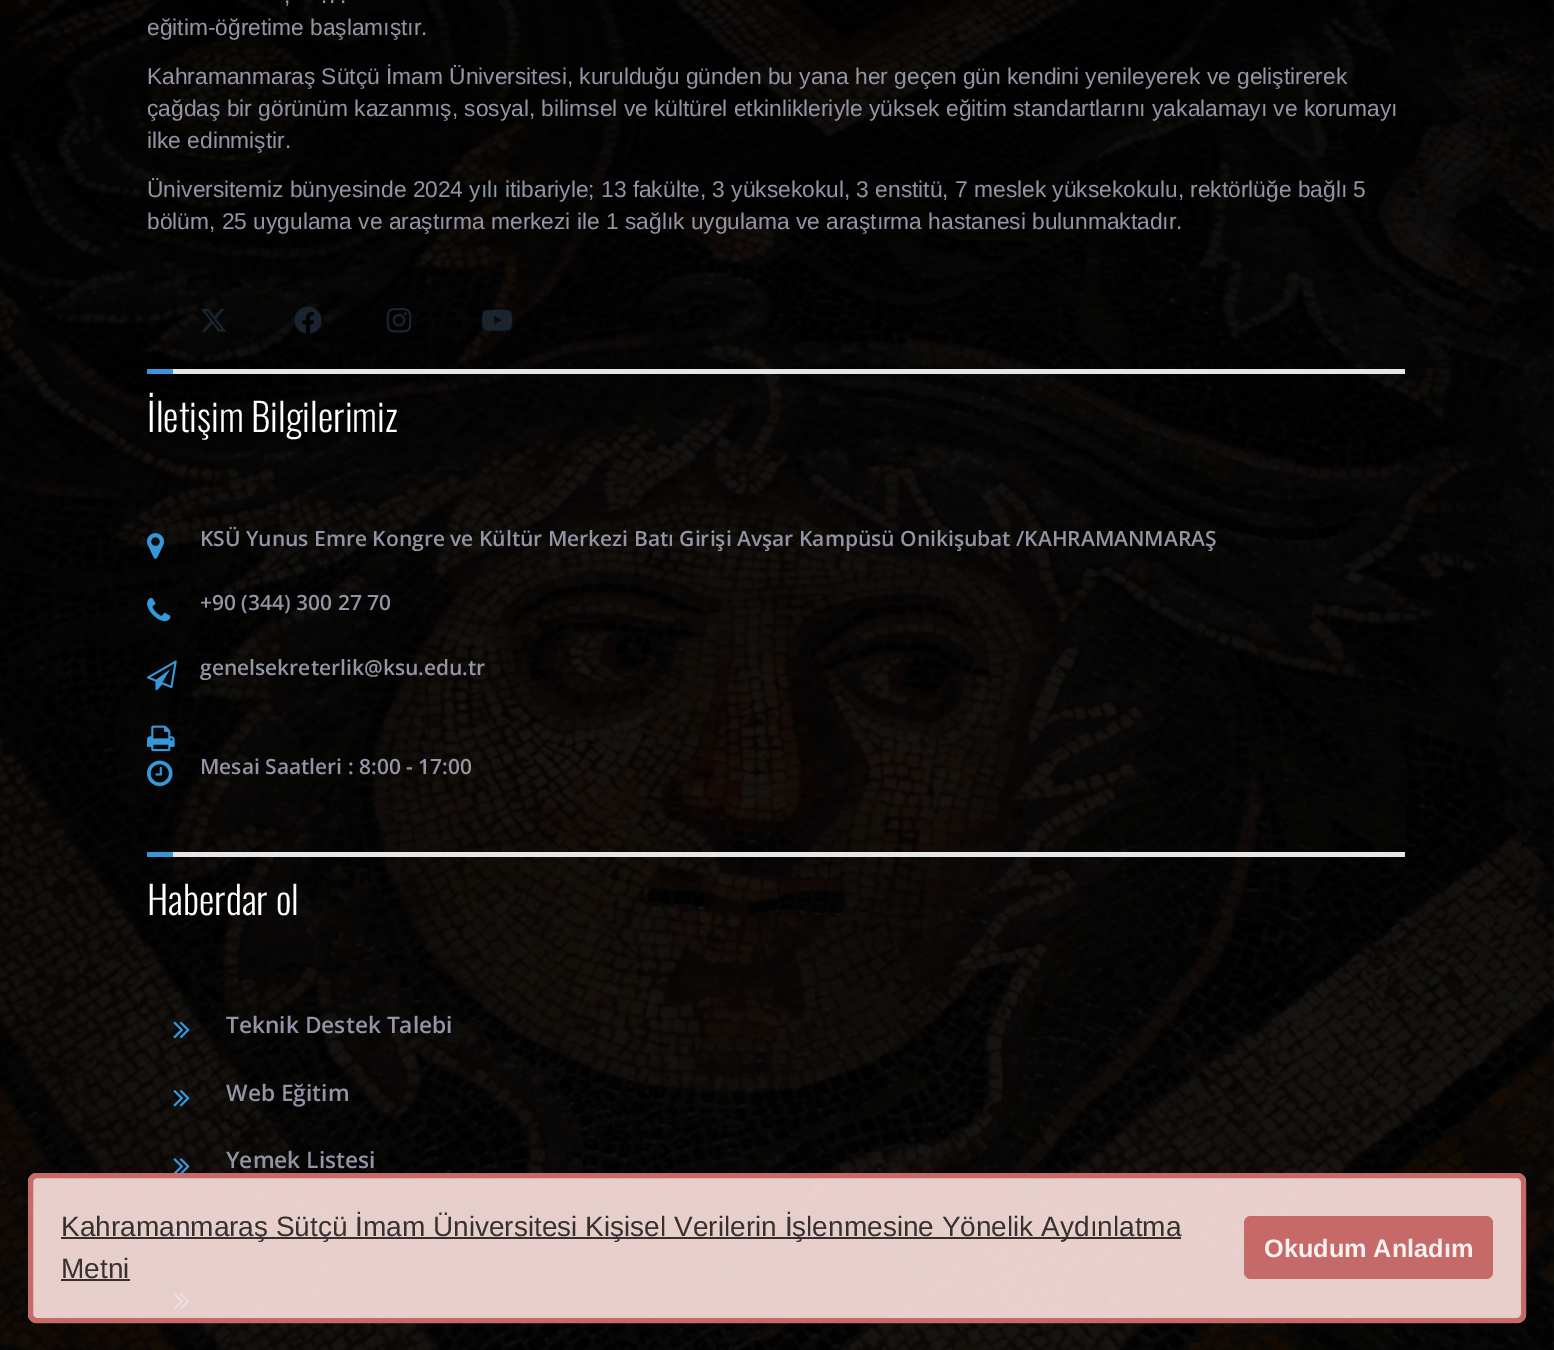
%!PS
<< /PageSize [1554 1350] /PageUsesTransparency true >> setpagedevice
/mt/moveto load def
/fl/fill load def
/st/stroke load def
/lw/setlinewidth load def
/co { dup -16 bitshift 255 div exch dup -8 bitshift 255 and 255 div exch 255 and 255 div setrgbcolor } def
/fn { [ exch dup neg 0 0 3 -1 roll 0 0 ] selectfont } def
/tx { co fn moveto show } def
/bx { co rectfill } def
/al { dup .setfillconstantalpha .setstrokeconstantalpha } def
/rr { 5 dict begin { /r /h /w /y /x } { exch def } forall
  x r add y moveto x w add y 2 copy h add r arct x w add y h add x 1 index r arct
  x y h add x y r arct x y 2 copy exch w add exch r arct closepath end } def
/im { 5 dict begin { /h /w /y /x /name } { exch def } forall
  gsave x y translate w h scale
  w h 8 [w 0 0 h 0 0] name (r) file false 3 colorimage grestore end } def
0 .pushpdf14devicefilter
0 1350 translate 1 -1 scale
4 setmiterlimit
0 0 1554 1350 16#FFFFFF bx
(media/1.raw) 0 0 1554 1350 im
(media/2.raw) 201 308 25 24 im
(media/3.raw) 294 306 28 28 im
(media/4.raw) 386 308 26 25 im
(media/5.raw) 482 309 30 22 im
173 369 1232 5 16#E6E6E6 bx
147 369 26 5 16#3498DB bx
(media/6.raw) 147 533 17 26 im
(media/7.raw) 147 597 24 25 im
(media/8.raw) 147 660 30 31 im
(media/9.raw) 147 725 28 27 im
(media/10.raw) 147 760 26 27 im
173 852 1232 5 16#E6E6E6 bx
147 852 26 5 16#3498DB bx
(media/11.raw) 173 1021 17 18 im
(media/12.raw) 173 1090 17 17 im
(media/13.raw) 173 1158 17 17 im
(media/14.raw) 173 1224 17 18 im
(media/15.raw) 173 1293 17 17 im
0.9 al
16#FFE4E1 co
28 1173 1498 150 9 rr fl
16#C25E5E co
5 lw
30.5 1175.5 1493 145 6.5 rr st
0.77 al
61 1237 1120 2 16#000000 bx
1 al
61 1279 69 2 16#363030 bx
16#C66969 co
1244 1216 249 63 7 rr fl
(,) 284 3 /LiberationSans-Regular 22.75 16#9395A5 tx
(.7.) 321 3 /LiberationSans-Regular 22.75 16#9395A5 tx
(eğitim-öğretime başlamıştır.) 147 35 /LiberationSans-Regular 22.75 16#9395A5 tx
(Kahramanmaraş Sütçü İmam Üniversitesi, kurulduğu günden bu yana her geçen gün kendini yenileyerek ve geliştirerek) 147 84 /LiberationSans-Regular 22.75 16#9395A5 tx
(çağdaş bir görünüm kazanmış, sosyal, bilimsel ve kültürel etkinlikleriyle yüksek eğitim standartlarını yakalamayı ve korumayı) 147 116 /LiberationSans-Regular 22.75 16#9395A5 tx
(ilke edinmiştir.) 147 148 /LiberationSans-Regular 22.75 16#9395A5 tx
(Üniversitemiz bünyesinde 2024 yılı itibariyle; 13 fakülte, 3 yüksekokul, 3 enstitü, 7 meslek yüksekokulu, rektörlüğe bağlı 5) 147 197 /LiberationSans-Regular 22.75 16#9395A5 tx
(bölüm, 25 uygulama ve araştırma merkezi ile 1 sağlık uygulama ve araştırma hastanesi bulunmaktadır.) 147 229 /LiberationSans-Regular 22.75 16#9395A5 tx
/Oswald-Light 38.5 fn
16#FFFFFF co
147 432 mt -1 0 32 (İletişim Bilgilerimiz) widthshow
(KSÜ Yunus Emre Kongre ve Kültür Merkezi Batı Girişi Avşar Kampüsü Onikişubat /KAHRAMANMARAŞ) 200 546 /OpenSans-SemiBold 21 16#9395A5 tx
(+90 \(344\) 300 27 70) 200 610 /OpenSans-SemiBold 21 16#9395A5 tx
(genelsekreterlik@ksu.edu.tr) 200 675 /OpenSans-SemiBold 21 16#9395A5 tx
(Mesai Saatleri : 8:00 - 17:00) 200 774 /OpenSans-SemiBold 21 16#9395A5 tx
(Haberdar ol) 147 915 /Oswald-Light 38.5 16#FFFFFF tx
(Teknik Destek Talebi) 226 1033 /OpenSans-SemiBold 22.75 16#9395A5 tx
(Web Eğitim) 226 1101 /OpenSans-SemiBold 22.75 16#9395A5 tx
(Yemek Listesi) 226 1168 /OpenSans-SemiBold 22.75 16#9395A5 tx
(Kahramanmaraş Sütçü İmam Üniversitesi Kişisel Verilerin İşlenmesine Yönelik Aydınlatma) 61 1236 /LiberationSans-Regular 28 16#363030 tx
(Metni) 61 1278 /LiberationSans-Regular 28 16#363030 tx
(Okudum Anladım) 1264 1257 /LiberationSans-Bold 25.25 16#F9F0F0 tx
.poppdf14devicefilter showpage
